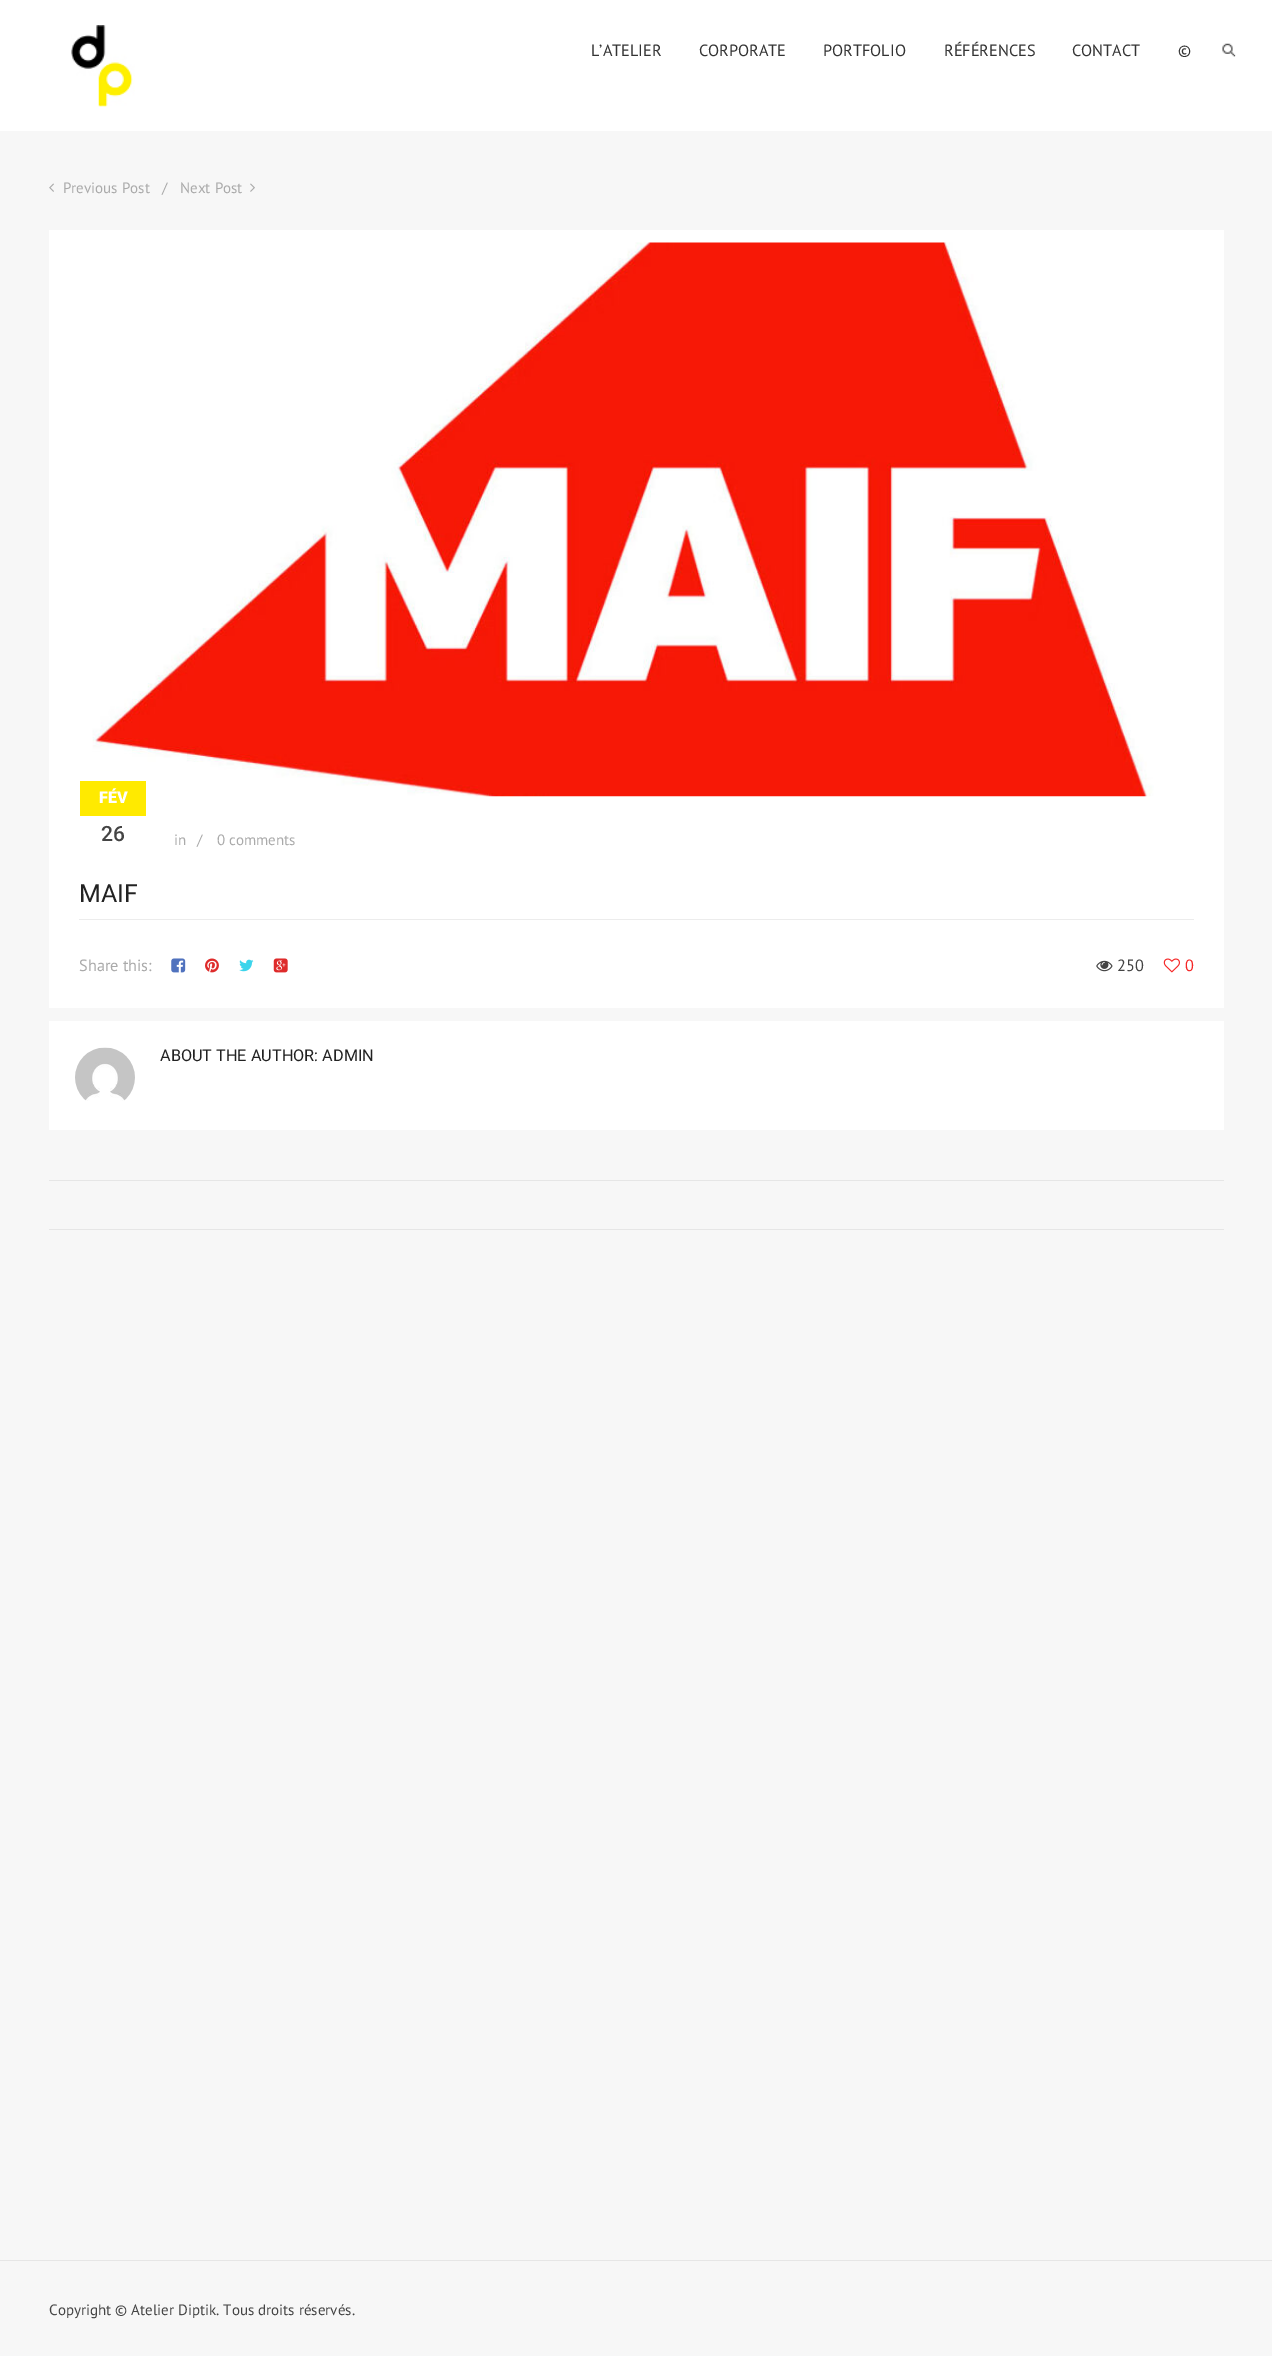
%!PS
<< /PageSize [1272 2356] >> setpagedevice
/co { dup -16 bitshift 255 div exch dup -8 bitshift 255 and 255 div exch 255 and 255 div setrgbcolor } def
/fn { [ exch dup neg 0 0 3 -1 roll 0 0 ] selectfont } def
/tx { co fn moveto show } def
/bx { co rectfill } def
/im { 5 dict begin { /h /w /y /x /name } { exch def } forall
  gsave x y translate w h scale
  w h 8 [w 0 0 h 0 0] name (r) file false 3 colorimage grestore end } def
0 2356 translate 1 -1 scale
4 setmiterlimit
0 0 1272 2356 16#F7F7F7 bx
0 0 1272 131 16#FFFFFF bx
(media/1.raw) 71 25 64 82 im
(media/2.raw) 1222 43 14 14 im
(media/3.raw) 49 183 5 9 im
(media/4.raw) 250 183 5 9 im
49 230 1175 778 16#FFFFFF bx
(media/5.raw) 92 242 1062 555 im
80 781 66 35 16#FFEA00 bx
79 919 1115 1 16#ECECEC bx
(media/6.raw) 171 958 15 15 im
(media/7.raw) 205 958 14 15 im
(media/8.raw) 239 959 15 13 im
(media/9.raw) 273 958 15 15 im
(media/10.raw) 1096 960 17 12 im
(media/11.raw) 1163 958 17 15 im
49 1021 1175 109 16#FFFFFF bx
(media/12.raw) 75 1047 60 54 im
49 1180 1175 1 16#E6E6E6 bx
49 1229 1175 1 16#E6E6E6 bx
0 2260 1272 1 16#E6E6E6 bx
(L’ATELIER) 591 56 /PTSans-Regular 16.25 16#343434 tx
(CORPORATE) 699 56 /PTSans-Regular 16.25 16#343434 tx
(PORTFOLIO) 823 56 /PTSans-Regular 16.25 16#343434 tx
(RÉFÉRENCES) 944 56 /PTSans-Regular 16.25 16#343434 tx
(CONTACT) 1072 56 /PTSans-Regular 16.25 16#343434 tx
(©) 1178 56 /PTSans-Regular 16.25 16#343434 tx
(Previous Post) 63 193 /PTSans-Regular 15 16#AAAAAA tx
(/) 162 193 /PTSans-Regular 15 16#AAAAAA tx
(Next Post) 180 193 /PTSans-Regular 15 16#AAAAAA tx
(FÉV) 99 803 /Roboto-Black 16.25 16#FFFFFF tx
(26) 101 841 /Roboto-Medium 21 16#444444 tx
(in) 174 845 /PTSans-Regular 15 16#AAAAAA tx
(/) 197 845 /PTSans-Regular 15 16#AAAAAA tx
(0 comments) 217 845 /PTSans-Regular 15 16#AAAAAA tx
(MAIF) 79 902 /Roboto-Regular 25 16#222222 tx
(Share this:) 79 971 /PTSans-Regular 16.25 16#AAAAAA tx
(250) 1117 971 /PTSans-Regular 16.25 16#444444 tx
(0) 1185 971 /PTSans-Regular 16.25 16#F52626 tx
(ABOUT THE AUTHOR: ADMIN) 160 1061 /Roboto-Regular 16.25 16#222222 tx
(Copyright © Atelier Diptik. Tous droits réservés.) 49 2315 /PTSans-Regular 15 16#444444 tx
showpage
